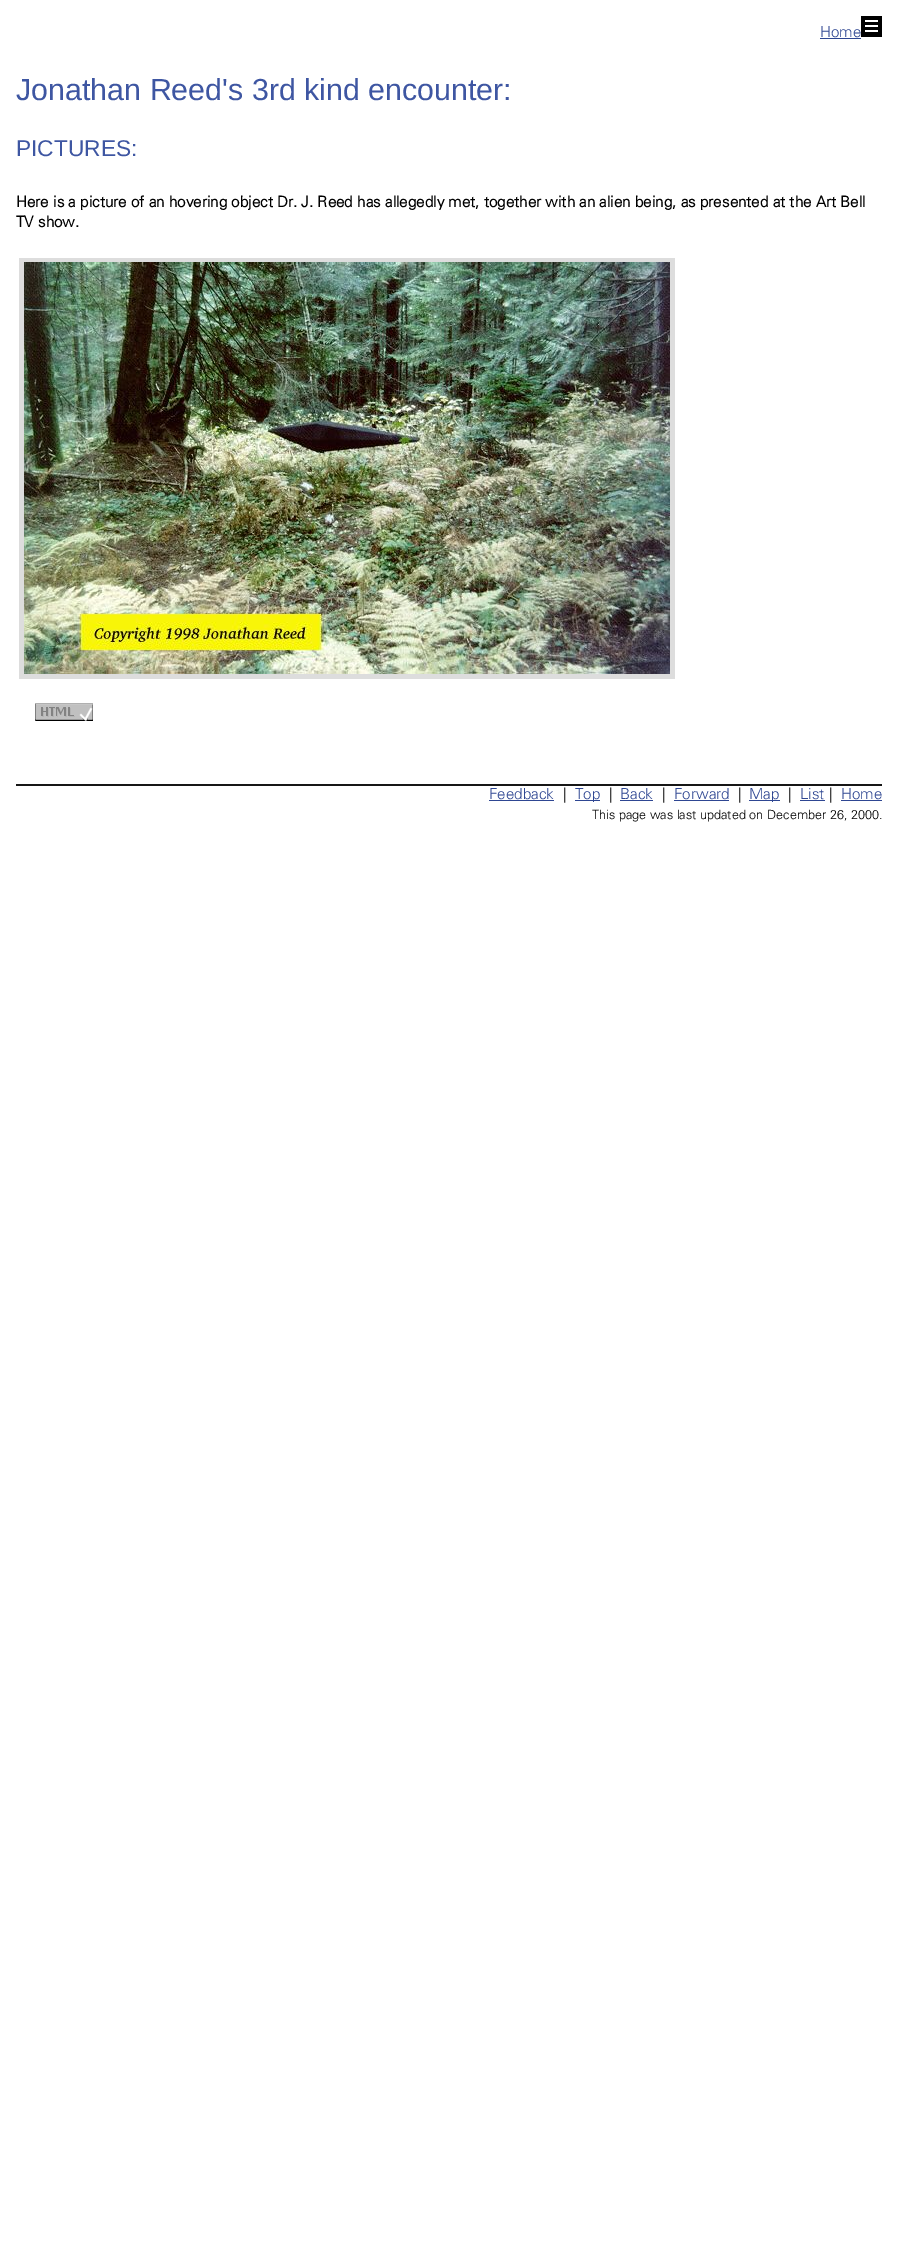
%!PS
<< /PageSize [898 2251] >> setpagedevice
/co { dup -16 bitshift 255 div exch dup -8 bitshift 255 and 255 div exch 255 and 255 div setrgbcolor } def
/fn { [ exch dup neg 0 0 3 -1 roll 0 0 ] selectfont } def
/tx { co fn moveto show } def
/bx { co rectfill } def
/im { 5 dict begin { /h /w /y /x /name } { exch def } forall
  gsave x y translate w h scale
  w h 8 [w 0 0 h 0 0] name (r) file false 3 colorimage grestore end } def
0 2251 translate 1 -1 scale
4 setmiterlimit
0 0 898 2251 16#FFFFFF bx
820 38 41 1 16#2E4692 bx
(media/1.raw) 861 16 21 21 im
19 258 656 421 16#DDDDDD bx
(media/2.raw) 24 262 646 412 im
(media/3.raw) 35 703 58 18 im
16 784 866 2 16#161616 bx
489 800 65 1 16#2E4692 bx
575 800 25 1 16#2E4692 bx
620 800 33 1 16#2E4692 bx
674 800 55 1 16#2E4692 bx
749 800 31 1 16#2E4692 bx
800 800 25 1 16#2E4692 bx
841 800 41 1 16#2E4692 bx
(Home) 820 37 /Univers-Light 15.2 16#2E4692 tx
(Jonathan Reed's 3rd kind encounter:) 16 100 /LiberationSans-Regular 30.4 16#3E56A2 tx
(PICTURES:) 16 156 /LiberationSans-Regular 22.75 16#3E56A2 tx
(Here is a picture of an hovering object Dr. J. Reed has allegedly met, together with an alien being, as presented at the Art Bell) 16 207 /Univers-Bold 15.2 16#000000 tx
(TV show.) 16 227 /Univers-Bold 15.2 16#000000 tx
(Feedback) 489 799 /Univers-Light 15.2 16#2E4692 tx
(|) 563 799 /Univers-Light 15.2 16#000000 tx
(Top) 575 799 /Univers-Light 15.2 16#2E4692 tx
(|) 609 799 /Univers-Light 15.2 16#000000 tx
(Back) 620 799 /Univers-Light 15.2 16#2E4692 tx
(|) 662 799 /Univers-Light 15.2 16#000000 tx
(Forward) 674 799 /Univers-Light 15.2 16#2E4692 tx
(|) 738 799 /Univers-Light 15.2 16#000000 tx
(Map) 749 799 /Univers-Light 15.2 16#2E4692 tx
(|) 788 799 /Univers-Light 15.2 16#000000 tx
(List) 800 799 /Univers-Light 15.2 16#2E4692 tx
(|) 829 799 /Univers-Light 15.2 16#000000 tx
(Home) 841 799 /Univers-Light 15.2 16#2E4692 tx
(This page was last updated on December 26, 2000.) 592 819 /Univers-Light 12.7 16#000000 tx
showpage
